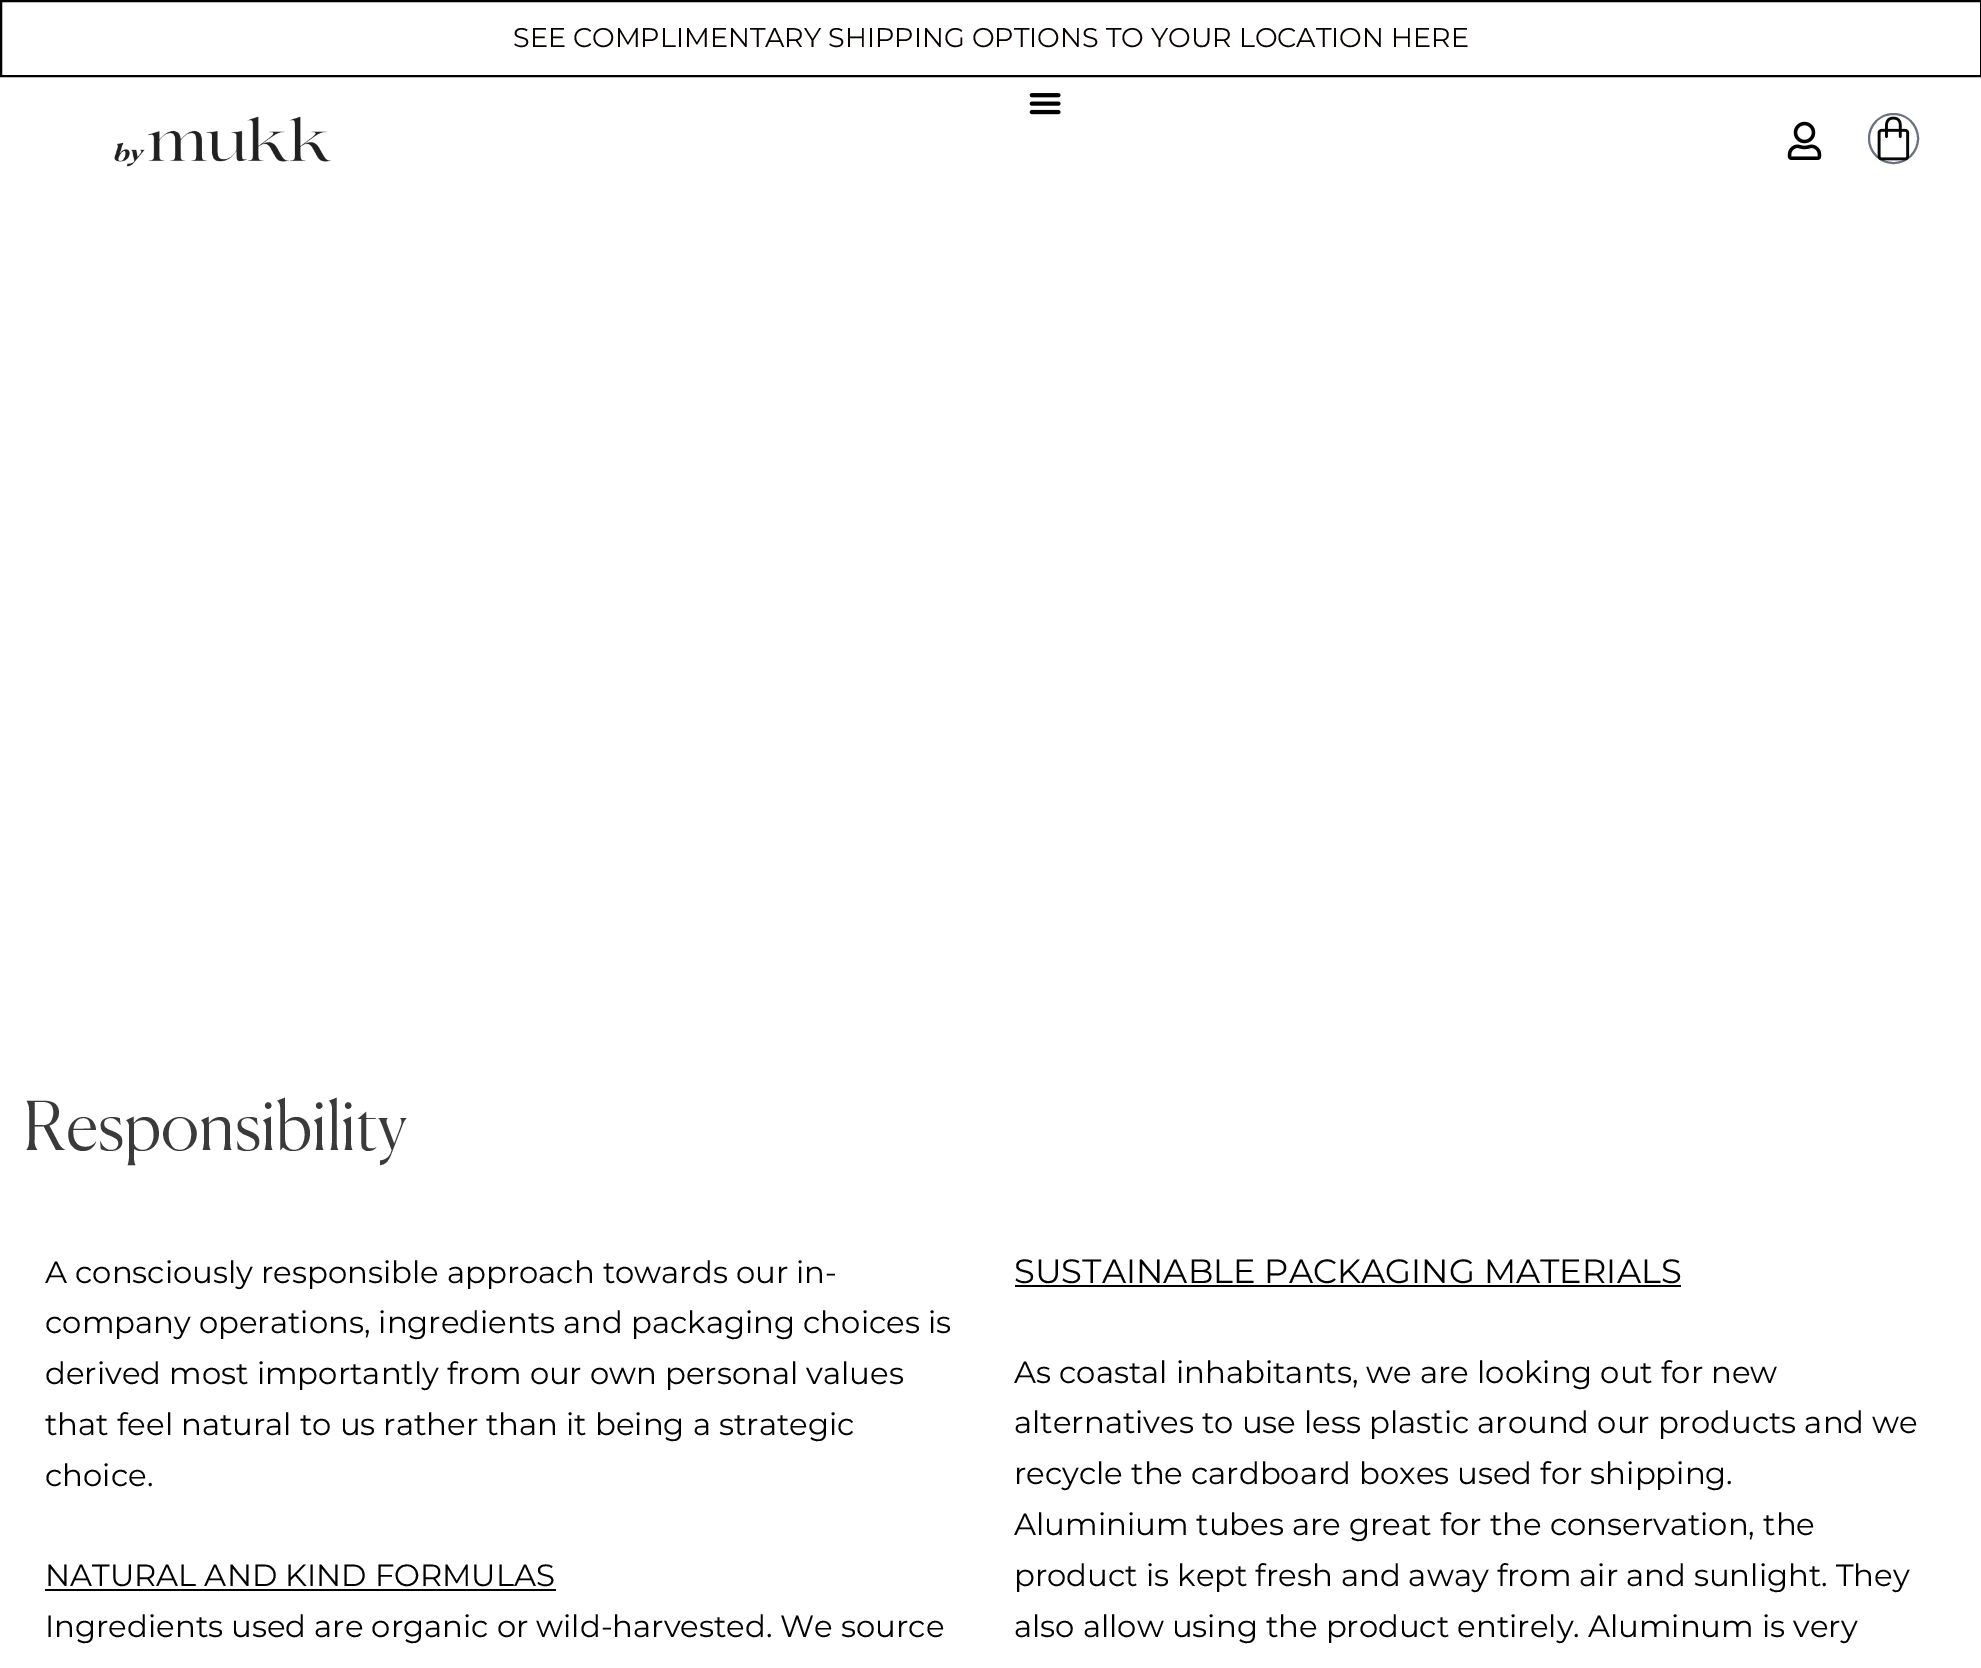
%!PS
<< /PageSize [1981 1668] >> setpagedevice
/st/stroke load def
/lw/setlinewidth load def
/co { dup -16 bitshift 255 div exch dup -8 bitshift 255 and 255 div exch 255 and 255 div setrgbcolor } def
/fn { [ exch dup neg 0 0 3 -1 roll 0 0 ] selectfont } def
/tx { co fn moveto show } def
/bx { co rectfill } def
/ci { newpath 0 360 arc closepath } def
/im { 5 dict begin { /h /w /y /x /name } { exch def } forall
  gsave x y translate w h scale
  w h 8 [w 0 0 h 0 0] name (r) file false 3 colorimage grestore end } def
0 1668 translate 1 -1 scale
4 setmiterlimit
0 0 1981 1668 16#FFFFFF bx
16#000000 co
2 lw
1 1 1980 75 rectstroke
(media/1.raw) 1029 93 32 22 im
(media/2.raw) 114 116 217 51 im
(media/3.raw) 1787 121 35 39 im
16#69727D co
1893.5 138.5 24.5 ci st
(media/4.raw) 1877 116 33 45 im
45 1589 511 2 16#010000 bx
1015 1285 666 2 16#010000 bx
(SEE COMPLIMENTARY SHIPPING OPTIONS TO YOUR LOCATION HERE) 513 47 /Montserrat-Regular 27 16#090000 tx
(Responsibility) 23 1150 /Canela-Light 67.5 16#3A3A3A tx
(A consciously responsible approach towards our in-) 45 1283 /Montserrat-Regular 30.75 16#010000 tx
(company operations, ingredients and packaging choices is) 45 1333 /Montserrat-Regular 30.75 16#010000 tx
(derived most importantly from our own personal values) 45 1384 /Montserrat-Regular 30.75 16#010000 tx
(that feel natural to us rather than it being a strategic) 45 1435 /Montserrat-Regular 30.75 16#010000 tx
(choice.) 45 1486 /Montserrat-Regular 30.75 16#010000 tx
(NATURAL AND KIND FORMULAS) 45 1586 /Montserrat-Regular 30.75 16#010000 tx
(Ingredients used are organic or wild-harvested. We source) 45 1637 /Montserrat-Regular 30.75 16#010000 tx
(SUSTAINABLE PACKAGING MATERIALS) 1014 1283 /Montserrat-Regular 33.75 16#010000 tx
(As coastal inhabitants, we are looking out for new) 1014 1383 /Montserrat-Regular 30.75 16#010000 tx
(alternatives to use less plastic around our products and we) 1014 1433 /Montserrat-Regular 30.75 16#010000 tx
(recycle the cardboard boxes used for shipping.) 1014 1484 /Montserrat-Regular 30.75 16#010000 tx
(Aluminium tubes are great for the conservation, the) 1014 1535 /Montserrat-Regular 30.75 16#010000 tx
(product is kept fresh and away from air and sunlight. They) 1014 1586 /Montserrat-Regular 30.75 16#010000 tx
(also allow using the product entirely. Aluminum is very) 1014 1637 /Montserrat-Regular 30.75 16#010000 tx
showpage
